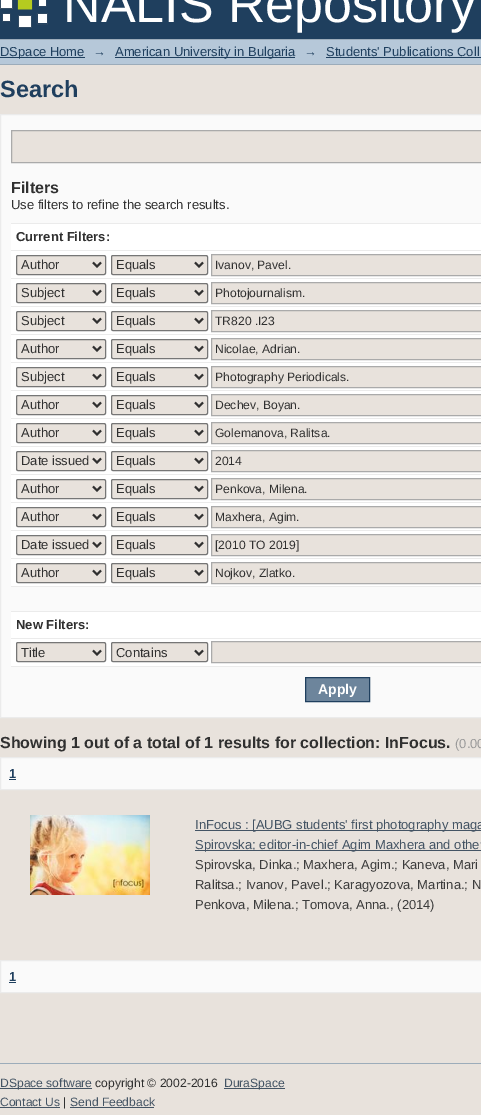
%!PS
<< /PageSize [481 1115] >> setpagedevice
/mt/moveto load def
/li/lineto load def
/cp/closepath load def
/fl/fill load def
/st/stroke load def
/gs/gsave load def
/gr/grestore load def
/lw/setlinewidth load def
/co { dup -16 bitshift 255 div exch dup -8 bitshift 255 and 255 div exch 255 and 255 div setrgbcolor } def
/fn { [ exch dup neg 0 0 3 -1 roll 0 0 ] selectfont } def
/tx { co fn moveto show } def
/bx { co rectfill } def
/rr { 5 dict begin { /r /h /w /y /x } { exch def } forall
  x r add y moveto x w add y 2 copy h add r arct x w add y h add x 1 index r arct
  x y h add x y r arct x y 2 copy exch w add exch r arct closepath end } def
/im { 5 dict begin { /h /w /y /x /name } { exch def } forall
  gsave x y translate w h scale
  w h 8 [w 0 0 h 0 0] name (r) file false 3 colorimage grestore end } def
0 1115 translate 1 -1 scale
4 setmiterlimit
0 0 481 1115 16#E8E2DC bx
0 0 481 39 16#1F3F5E bx
(media/1.raw) 0 0 48 28 im
0 40 481 24 16#B6C8D9 bx
0 39 481 1 16#9CACBA bx
0 64 481 1 16#9CACBA bx
0 57 85 1 16#1F3F5E bx
115 57 180 1 16#1F3F5E bx
326 57 155 1 16#1F3F5E bx
16#FAFAFA co
.5 114.5 mt 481.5 114.5 li 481.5 717.5 li .5 717.5 li cp gs fl gr
16#EBEBEB co
st
16#E8E2DC co
11.5 130.5 mt 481.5 130.5 li 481.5 162.5 li 11.5 162.5 li cp gs fl gr
16#AAAAAA co
st
11 224 470 442 16#FFFFFF bx
11 223 470 1 16#EBEBEB bx
11 250 470 1 16#EBEBEB bx
16#E8E2DC co
16.5 255.5 89 19 1.5 rr gs fl gr
16#767676 co
st
16#303030 co
2 lw
93 262.5 mt 97 266.5 li 101 262.5 li st
16#E8E2DC co
111.5 255.5 96 19 1.5 rr gs fl gr
16#767676 co
1 lw
st
16#303030 co
2 lw
195 262.5 mt 199 266.5 li 203 262.5 li st
16#E8E2DC co
211.5 254.5 mt 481.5 254.5 li 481.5 275.5 li 211.5 275.5 li cp gs fl gr
16#AAAAAA co
1 lw
st
11 278 470 1 16#EBEBEB bx
16#E8E2DC co
16.5 283.5 89 19 1.5 rr gs fl gr
16#767676 co
st
16#303030 co
2 lw
93 290.5 mt 97 294.5 li 101 290.5 li st
16#E8E2DC co
111.5 283.5 96 19 1.5 rr gs fl gr
16#767676 co
1 lw
st
16#303030 co
2 lw
195 290.5 mt 199 294.5 li 203 290.5 li st
16#E8E2DC co
211.5 282.5 mt 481.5 282.5 li 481.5 303.5 li 211.5 303.5 li cp gs fl gr
16#AAAAAA co
1 lw
st
11 306 470 1 16#EBEBEB bx
16#E8E2DC co
16.5 311.5 89 19 1.5 rr gs fl gr
16#767676 co
st
16#303030 co
2 lw
93 318.5 mt 97 322.5 li 101 318.5 li st
16#E8E2DC co
111.5 311.5 96 19 1.5 rr gs fl gr
16#767676 co
1 lw
st
16#303030 co
2 lw
195 318.5 mt 199 322.5 li 203 318.5 li st
16#E8E2DC co
211.5 310.5 mt 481.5 310.5 li 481.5 331.5 li 211.5 331.5 li cp gs fl gr
16#AAAAAA co
1 lw
st
11 334 470 1 16#EBEBEB bx
16#E8E2DC co
16.5 339.5 89 19 1.5 rr gs fl gr
16#767676 co
st
16#303030 co
2 lw
93 346.5 mt 97 350.5 li 101 346.5 li st
16#E8E2DC co
111.5 339.5 96 19 1.5 rr gs fl gr
16#767676 co
1 lw
st
16#303030 co
2 lw
195 346.5 mt 199 350.5 li 203 346.5 li st
16#E8E2DC co
211.5 338.5 mt 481.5 338.5 li 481.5 359.5 li 211.5 359.5 li cp gs fl gr
16#AAAAAA co
1 lw
st
11 362 470 1 16#EBEBEB bx
16#E8E2DC co
16.5 367.5 89 19 1.5 rr gs fl gr
16#767676 co
st
16#303030 co
2 lw
93 374.5 mt 97 378.5 li 101 374.5 li st
16#E8E2DC co
111.5 367.5 96 19 1.5 rr gs fl gr
16#767676 co
1 lw
st
16#303030 co
2 lw
195 374.5 mt 199 378.5 li 203 374.5 li st
16#E8E2DC co
211.5 366.5 mt 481.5 366.5 li 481.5 387.5 li 211.5 387.5 li cp gs fl gr
16#AAAAAA co
1 lw
st
11 390 470 1 16#EBEBEB bx
16#E8E2DC co
16.5 395.5 89 19 1.5 rr gs fl gr
16#767676 co
st
16#303030 co
2 lw
93 402.5 mt 97 406.5 li 101 402.5 li st
16#E8E2DC co
111.5 395.5 96 19 1.5 rr gs fl gr
16#767676 co
1 lw
st
16#303030 co
2 lw
195 402.5 mt 199 406.5 li 203 402.5 li st
16#E8E2DC co
211.5 394.5 mt 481.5 394.5 li 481.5 415.5 li 211.5 415.5 li cp gs fl gr
16#AAAAAA co
1 lw
st
11 418 470 1 16#EBEBEB bx
16#E8E2DC co
16.5 423.5 89 19 1.5 rr gs fl gr
16#767676 co
st
16#303030 co
2 lw
93 430.5 mt 97 434.5 li 101 430.5 li st
16#E8E2DC co
111.5 423.5 96 19 1.5 rr gs fl gr
16#767676 co
1 lw
st
16#303030 co
2 lw
195 430.5 mt 199 434.5 li 203 430.5 li st
16#E8E2DC co
211.5 422.5 mt 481.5 422.5 li 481.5 443.5 li 211.5 443.5 li cp gs fl gr
16#AAAAAA co
1 lw
st
11 446 470 1 16#EBEBEB bx
16#E8E2DC co
16.5 451.5 89 19 1.5 rr gs fl gr
16#767676 co
st
16#303030 co
2 lw
93 458.5 mt 97 462.5 li 101 458.5 li st
16#E8E2DC co
111.5 451.5 96 19 1.5 rr gs fl gr
16#767676 co
1 lw
st
16#303030 co
2 lw
195 458.5 mt 199 462.5 li 203 458.5 li st
16#E8E2DC co
211.5 450.5 mt 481.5 450.5 li 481.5 471.5 li 211.5 471.5 li cp gs fl gr
16#AAAAAA co
1 lw
st
11 474 470 1 16#EBEBEB bx
16#E8E2DC co
16.5 479.5 89 19 1.5 rr gs fl gr
16#767676 co
st
16#303030 co
2 lw
93 486.5 mt 97 490.5 li 101 486.5 li st
16#E8E2DC co
111.5 479.5 96 19 1.5 rr gs fl gr
16#767676 co
1 lw
st
16#303030 co
2 lw
195 486.5 mt 199 490.5 li 203 486.5 li st
16#E8E2DC co
211.5 478.5 mt 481.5 478.5 li 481.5 499.5 li 211.5 499.5 li cp gs fl gr
16#AAAAAA co
1 lw
st
11 502 470 1 16#EBEBEB bx
16#E8E2DC co
16.5 507.5 89 19 1.5 rr gs fl gr
16#767676 co
st
16#303030 co
2 lw
93 514.5 mt 97 518.5 li 101 514.5 li st
16#E8E2DC co
111.5 507.5 96 19 1.5 rr gs fl gr
16#767676 co
1 lw
st
16#303030 co
2 lw
195 514.5 mt 199 518.5 li 203 514.5 li st
16#E8E2DC co
211.5 506.5 mt 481.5 506.5 li 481.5 527.5 li 211.5 527.5 li cp gs fl gr
16#AAAAAA co
1 lw
st
11 530 470 1 16#EBEBEB bx
16#E8E2DC co
16.5 535.5 89 19 1.5 rr gs fl gr
16#767676 co
st
16#303030 co
2 lw
93 542.5 mt 97 546.5 li 101 542.5 li st
16#E8E2DC co
111.5 535.5 96 19 1.5 rr gs fl gr
16#767676 co
1 lw
st
16#303030 co
2 lw
195 542.5 mt 199 546.5 li 203 542.5 li st
16#E8E2DC co
211.5 534.5 mt 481.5 534.5 li 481.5 555.5 li 211.5 555.5 li cp gs fl gr
16#AAAAAA co
1 lw
st
11 558 470 1 16#EBEBEB bx
16#E8E2DC co
16.5 563.5 89 19 1.5 rr gs fl gr
16#767676 co
st
16#303030 co
2 lw
93 570.5 mt 97 574.5 li 101 570.5 li st
16#E8E2DC co
111.5 563.5 96 19 1.5 rr gs fl gr
16#767676 co
1 lw
st
16#303030 co
2 lw
195 570.5 mt 199 574.5 li 203 570.5 li st
16#E8E2DC co
211.5 562.5 mt 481.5 562.5 li 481.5 583.5 li 211.5 583.5 li cp gs fl gr
16#AAAAAA co
1 lw
st
11 587 470 24 16#FAFAFA bx
11 586 470 1 16#EBEBEB bx
11 611 470 1 16#EBEBEB bx
11 638 470 1 16#EBEBEB bx
16#E8E2DC co
16.5 642.5 89 19 1.5 rr gs fl gr
16#767676 co
st
16#303030 co
2 lw
93 650.5 mt 97 654.5 li 101 650.5 li st
16#E8E2DC co
111.5 642.5 96 19 1.5 rr gs fl gr
16#767676 co
1 lw
st
16#303030 co
2 lw
195 650.5 mt 199 654.5 li 203 650.5 li st
16#E8E2DC co
211.5 641.5 mt 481.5 641.5 li 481.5 662.5 li 211.5 662.5 li cp gs fl gr
16#AAAAAA co
1 lw
st
11 666 470 1 16#EBEBEB bx
16#6D859C co
305.5 677.5 mt 369.5 677.5 li 369.5 701.5 li 305.5 701.5 li cp gs fl gr
16#1F3F5E co
st
16#FAFAFA co
.5 757.5 mt 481.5 757.5 li 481.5 789.5 li .5 789.5 li cp gs fl gr
16#EBEBEB co
st
9 779 7 1 16#1F3F5E bx
(media/2.raw) 30 815 120 80 im
195 830 286 1 16#445464 bx
195 850 286 1 16#445464 bx
16#FAFAFA co
.5 960.5 mt 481.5 960.5 li 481.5 992.5 li .5 992.5 li cp gs fl gr
16#EBEBEB co
st
9 982 7 1 16#1F3F5E bx
0 1063 481 1 16#9CACBA bx
0 1088 92 1 16#445464 bx
224 1088 61 1 16#445464 bx
0 1107 60 1 16#445464 bx
70 1107 84 1 16#445464 bx
(NALIS Repository) 63 22 /LiberationSans-Regular 52 16#FFFFFF tx
(DSpace Home) 0 56 /LiberationSans-Regular 13 16#1F3F5E tx
(→) 93 56 /LiberationSans-Regular 13 16#1F3F5E tx
(American University in Bulgaria) 115 56 /LiberationSans-Regular 13 16#1F3F5E tx
(→) 304 56 /LiberationSans-Regular 13 16#1F3F5E tx
(Students' Publications Coll) 326 56 /LiberationSans-Regular 13 16#1F3F5E tx
(Search) 0 97 /LiberationSans-Bold 23.5 16#1F3F5E tx
(Filters) 11 193 /LiberationSans-Bold 16 16#303030 tx
(Use filters to refine the search results.) 11 209 /LiberationSans-Regular 13 16#303030 tx
(Current Filters:) 16 241 /LiberationSans-Bold 13 16#303030 tx
(Author) 21 269 /LiberationSans-Regular 13 16#303030 tx
(Equals) 116 269 /LiberationSans-Regular 13 16#303030 tx
(Ivanov, Pavel.) 215 269 /LiberationSans-Regular 12.1 16#303030 tx
(Subject) 21 297 /LiberationSans-Regular 13 16#303030 tx
(Equals) 116 297 /LiberationSans-Regular 13 16#303030 tx
(Photojournalism.) 215 297 /LiberationSans-Regular 12.1 16#303030 tx
(Subject) 21 325 /LiberationSans-Regular 13 16#303030 tx
(Equals) 116 325 /LiberationSans-Regular 13 16#303030 tx
(TR820 .I23) 215 325 /LiberationSans-Regular 12.1 16#303030 tx
(Author) 21 353 /LiberationSans-Regular 13 16#303030 tx
(Equals) 116 353 /LiberationSans-Regular 13 16#303030 tx
(Nicolae, Adrian.) 215 353 /LiberationSans-Regular 12.1 16#303030 tx
(Subject) 21 381 /LiberationSans-Regular 13 16#303030 tx
(Equals) 116 381 /LiberationSans-Regular 13 16#303030 tx
(Photography Periodicals.) 215 381 /LiberationSans-Regular 12.1 16#303030 tx
(Author) 21 409 /LiberationSans-Regular 13 16#303030 tx
(Equals) 116 409 /LiberationSans-Regular 13 16#303030 tx
(Dechev, Boyan.) 215 409 /LiberationSans-Regular 12.1 16#303030 tx
(Author) 21 437 /LiberationSans-Regular 13 16#303030 tx
(Equals) 116 437 /LiberationSans-Regular 13 16#303030 tx
(Golemanova, Ralitsa.) 215 437 /LiberationSans-Regular 12.1 16#303030 tx
(Date issued) 21 465 /LiberationSans-Regular 13 16#303030 tx
(Equals) 116 465 /LiberationSans-Regular 13 16#303030 tx
(2014) 215 465 /LiberationSans-Regular 12.1 16#303030 tx
(Author) 21 493 /LiberationSans-Regular 13 16#303030 tx
(Equals) 116 493 /LiberationSans-Regular 13 16#303030 tx
(Penkova, Milena.) 215 493 /LiberationSans-Regular 12.1 16#303030 tx
(Author) 21 521 /LiberationSans-Regular 13 16#303030 tx
(Equals) 116 521 /LiberationSans-Regular 13 16#303030 tx
(Maxhera, Agim.) 215 521 /LiberationSans-Regular 12.1 16#303030 tx
(Date issued) 21 549 /LiberationSans-Regular 13 16#303030 tx
(Equals) 116 549 /LiberationSans-Regular 13 16#303030 tx
([2010 TO 2019]) 215 549 /LiberationSans-Regular 12.1 16#303030 tx
(Author) 21 577 /LiberationSans-Regular 13 16#303030 tx
(Equals) 116 577 /LiberationSans-Regular 13 16#303030 tx
(Nojkov, Zlatko.) 215 577 /LiberationSans-Regular 12.1 16#303030 tx
(New Filters:) 16 629 /LiberationSans-Bold 13 16#303030 tx
(Title) 21 657 /LiberationSans-Regular 13 16#303030 tx
(Contains) 116 657 /LiberationSans-Regular 13 16#303030 tx
(Apply) 318 694 /LiberationSans-Bold 14 16#FFFFFF tx
(Showing 1 out of a total of 1 results for collection: InFocus.) 0 748 /LiberationSans-Bold 16 16#303030 tx
(\(0.00) 455 748 /LiberationSans-Regular 13 16#999999 tx
(1) 9 778 /LiberationSans-Bold 13 16#1F3F5E tx
(InFocus : [AUBG students' first photography maga) 195 829 /LiberationSans-Regular 13 16#445464 tx
(Spirovska; editor-in-chief Agim Maxhera and other) 195 849 /LiberationSans-Regular 13 16#445464 tx
(Spirovska, Dinka.; Maxhera, Agim.; Kaneva, Mari) 195 869 /LiberationSans-Regular 13 16#3C3C3C tx
(Ralitsa.; Ivanov, Pavel.; Karagyozova, Martina.; N) 195 889 /LiberationSans-Regular 13 16#3C3C3C tx
(Penkova, Milena.; Tomova, Anna., \(2014\)) 195 909 /LiberationSans-Regular 13 16#3C3C3C tx
(1) 9 981 /LiberationSans-Bold 13 16#1F3F5E tx
(DSpace software) 0 1087 /LiberationSans-Regular 12.1 16#445464 tx
(copyright © 2002-2016) 95 1087 /LiberationSans-Regular 12.1 16#303030 tx
(DuraSpace) 224 1087 /LiberationSans-Regular 12.1 16#445464 tx
(Contact Us) 0 1106 /LiberationSans-Regular 12.1 16#445464 tx
(|) 63 1106 /LiberationSans-Regular 12.1 16#303030 tx
(Send Feedback) 70 1106 /LiberationSans-Regular 12.1 16#445464 tx
showpage
